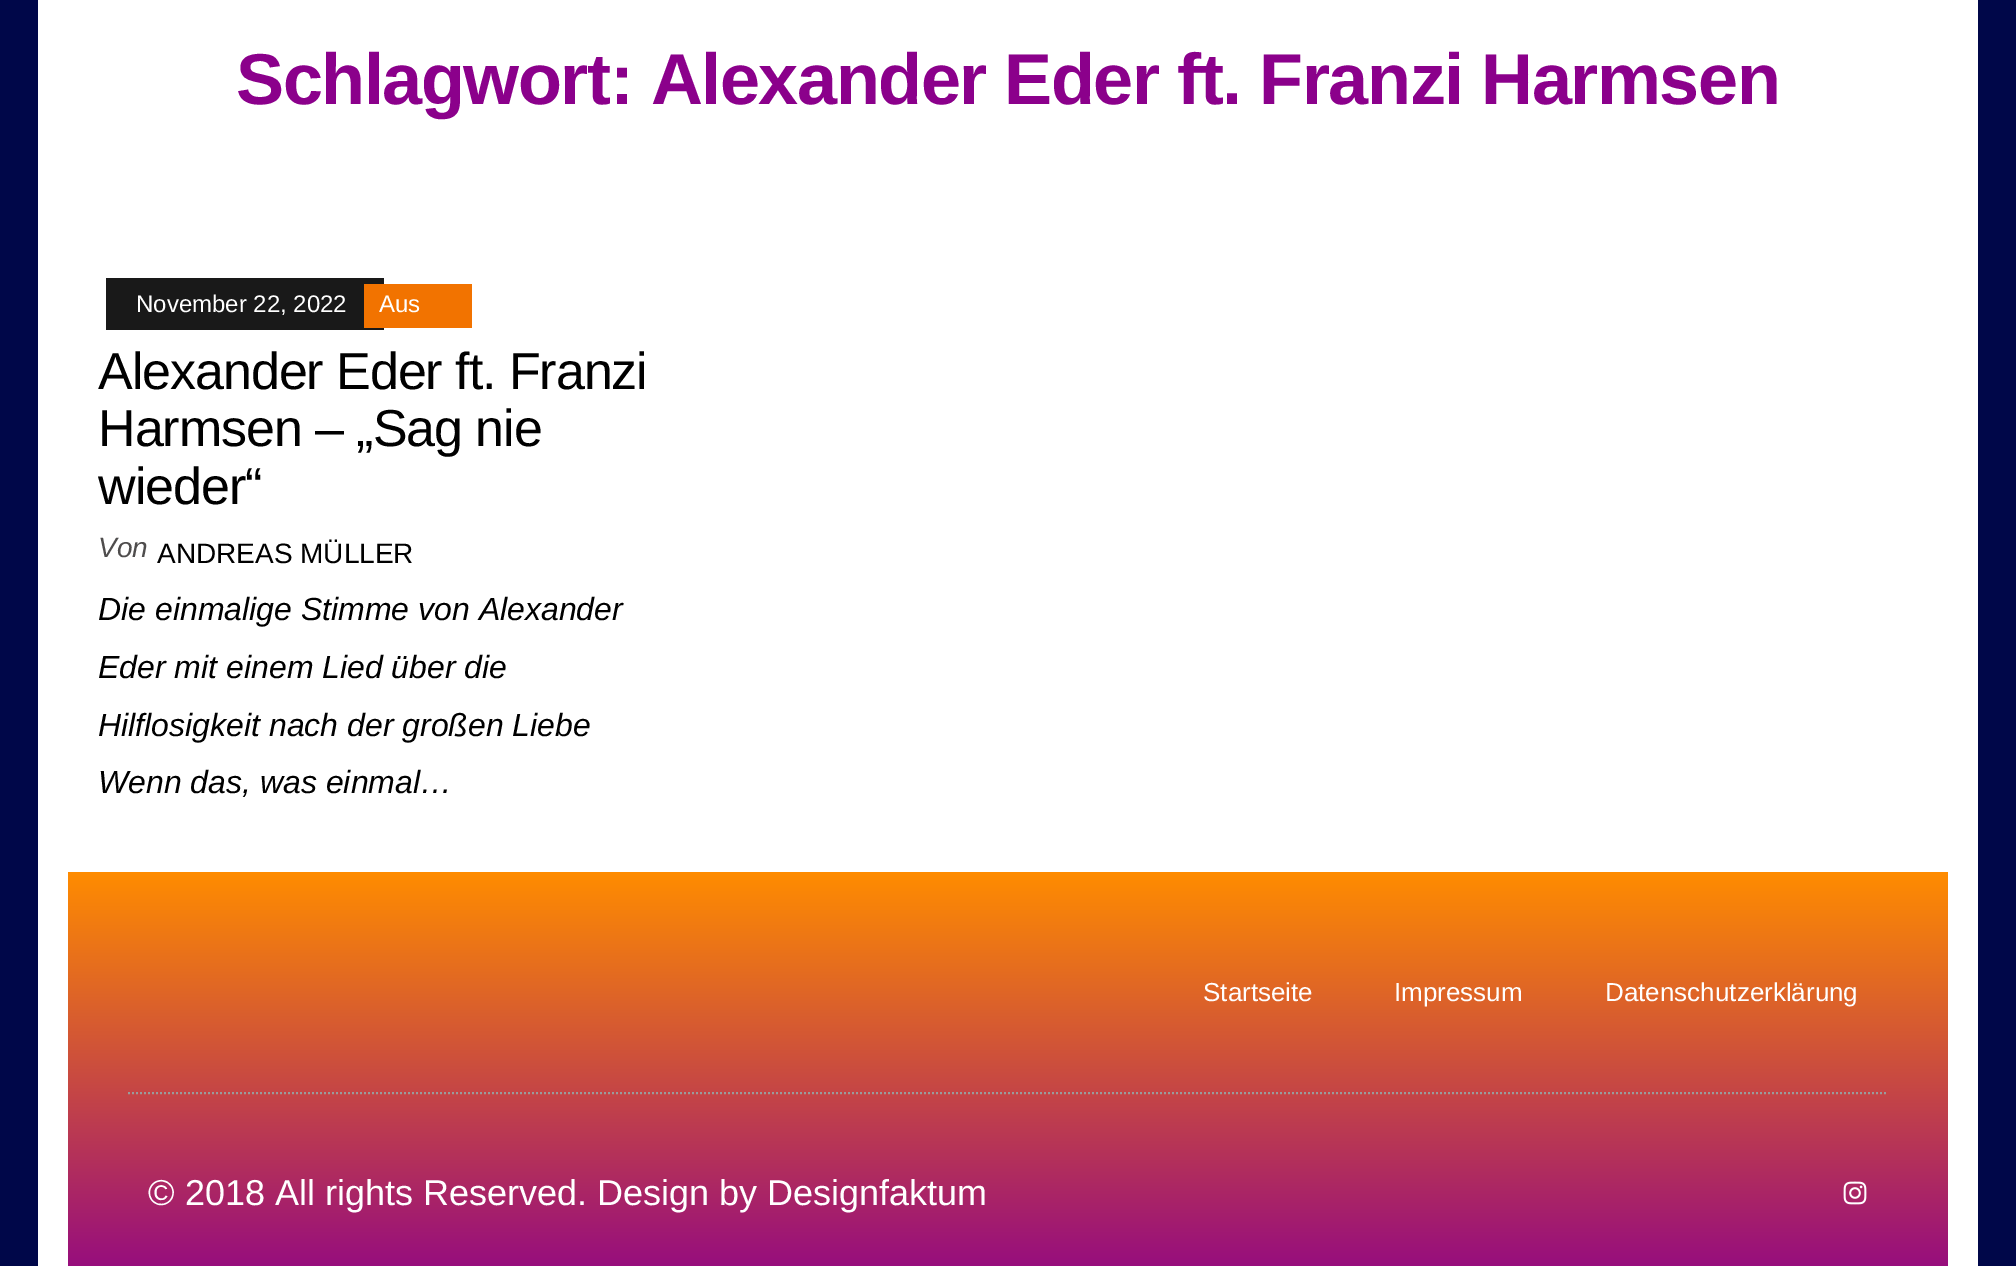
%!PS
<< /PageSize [2016 1266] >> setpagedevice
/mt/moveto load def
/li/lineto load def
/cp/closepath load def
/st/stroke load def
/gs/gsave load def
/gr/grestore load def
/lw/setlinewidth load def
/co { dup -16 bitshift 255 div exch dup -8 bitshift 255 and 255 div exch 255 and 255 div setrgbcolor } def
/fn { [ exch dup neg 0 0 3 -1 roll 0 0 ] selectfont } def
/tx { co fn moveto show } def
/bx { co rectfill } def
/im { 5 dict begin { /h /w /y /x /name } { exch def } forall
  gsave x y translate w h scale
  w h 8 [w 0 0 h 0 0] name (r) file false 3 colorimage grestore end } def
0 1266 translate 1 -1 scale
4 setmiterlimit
0 0 2016 1266 16#000749 bx
38 0 1940 1266 16#FFFFFF bx
106 278 278 52 16#191919 bx
364 284 108 44 16#F27300 bx
gs 68 872 mt 1948 872 li 1948 1266 li 68 1266 li cp clip newpath
<< /ShadingType 2 /ColorSpace /DeviceRGB /Coords [1008 872 1008 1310] /Extend [true true] /Function << /FunctionType 2 /Domain [0 1] /C0 [1 .549 0] /C1 [.545 0 .545] /N 1 >> >> shfill gr
16#9B9B9B co
2 lw
[2 2] 0 setdash
128 1093 mt 1888 1093 li st
(media/1.raw) 1843 1181 24 24 im
/LiberationSans-Bold 72 fn
16#8B008B co
236 104 mt -1.45 0 (Schlagwort: Alexander Eder ft. Franzi Harmsen) ashow
(November 22, 2022) 136 312 /LiberationSans-Regular 24 16#FFFFFF tx
(Aus) 379 312 /LiberationSans-Regular 24 16#FFFFFF tx
/LiberationSans-Regular 52 fn
16#000000 co
98 389 mt -1.05 0 (Alexander Eder ft. Franzi) ashow
98 446 mt -1.05 0 (Harmsen – „Sag nie) ashow
98 504 mt -1.05 0 (wieder“) ashow
(Von) 98 557 /LiberationSans-Italic 28 16#4F4D4D tx
(ANDREAS MÜLLER) 157 563 /LiberationSans-Regular 28 16#000000 tx
(Die einmalige Stimme von Alexander) 98 620 /LiberationSans-Italic 32 16#000000 tx
(Eder mit einem Lied über die) 98 678 /LiberationSans-Italic 32 16#000000 tx
(Hilflosigkeit nach der großen Liebe) 98 736 /LiberationSans-Italic 32 16#000000 tx
(Wenn das, was einmal…) 98 793 /LiberationSans-Italic 32 16#000000 tx
(Startseite) 1203 1001 /LiberationSans-Regular 26 16#FFFFFF tx
(Impressum) 1394 1001 /LiberationSans-Regular 26 16#FFFFFF tx
(Datenschutzerklärung) 1605 1001 /LiberationSans-Regular 26 16#FFFFFF tx
(© 2018 All rights Reserved. Design by Designfaktum) 148 1205 /LiberationSans-Regular 36 16#FFFFFF tx
showpage
